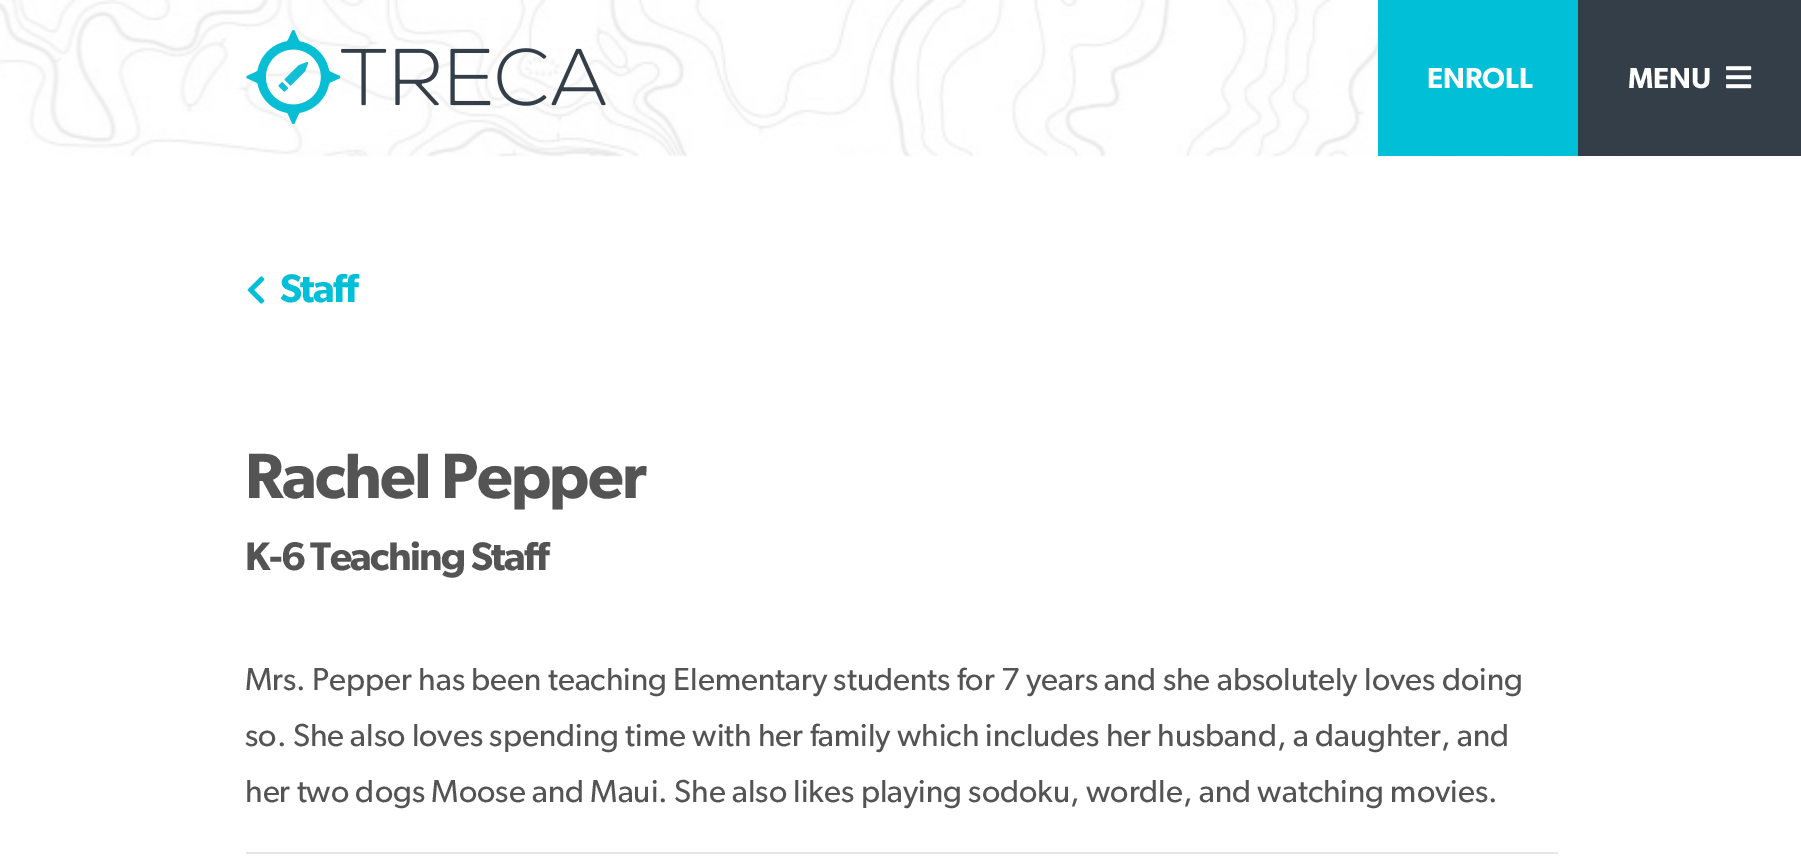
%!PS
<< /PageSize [1801 857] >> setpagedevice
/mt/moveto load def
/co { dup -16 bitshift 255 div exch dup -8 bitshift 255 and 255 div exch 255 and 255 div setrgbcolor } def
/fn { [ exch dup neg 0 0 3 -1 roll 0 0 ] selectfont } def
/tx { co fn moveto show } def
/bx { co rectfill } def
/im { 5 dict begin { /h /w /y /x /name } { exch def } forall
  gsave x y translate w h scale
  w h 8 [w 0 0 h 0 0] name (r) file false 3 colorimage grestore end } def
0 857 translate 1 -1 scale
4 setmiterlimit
0 0 1801 857 16#FFFFFF bx
(media/1.raw) 0 0 1801 157 im
(media/2.raw) 246 30 360 94 im
1378 0 200 156 16#00BFD6 bx
1578 0 223 156 16#333E48 bx
(media/3.raw) 1726 66 26 23 im
(media/4.raw) 247 276 18 28 im
246 852 1312 2 16#E6E6E6 bx
(ENROLL) 1427 88 /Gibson-SemiBold 29 16#FFFFFF tx
(MENU) 1628 88 /Gibson-SemiBold 29 16#FFFFFF tx
/Gibson-SemiBold 40 fn
16#00BFD6 co
280 302 mt -1.6 0 (Staff) ashow
/Gibson-SemiBold 64 fn
16#545454 co
245 498 mt -1.6 0 (Rachel Pepper) ashow
/Gibson-SemiBold 40 fn
245 570 mt -1.6 0 (K-6 Teaching Staff) ashow
(Mrs. Pepper has been teaching Elementary students for 7 years and she absolutely loves doing) 245 690 /Gibson-Regular 32 16#545454 tx
(so. She also loves spending time with her family which includes her husband, a daughter, and) 245 746 /Gibson-Regular 32 16#545454 tx
(her two dogs Moose and Maui. She also likes playing sodoku, wordle, and watching movies.) 245 802 /Gibson-Regular 32 16#545454 tx
showpage
